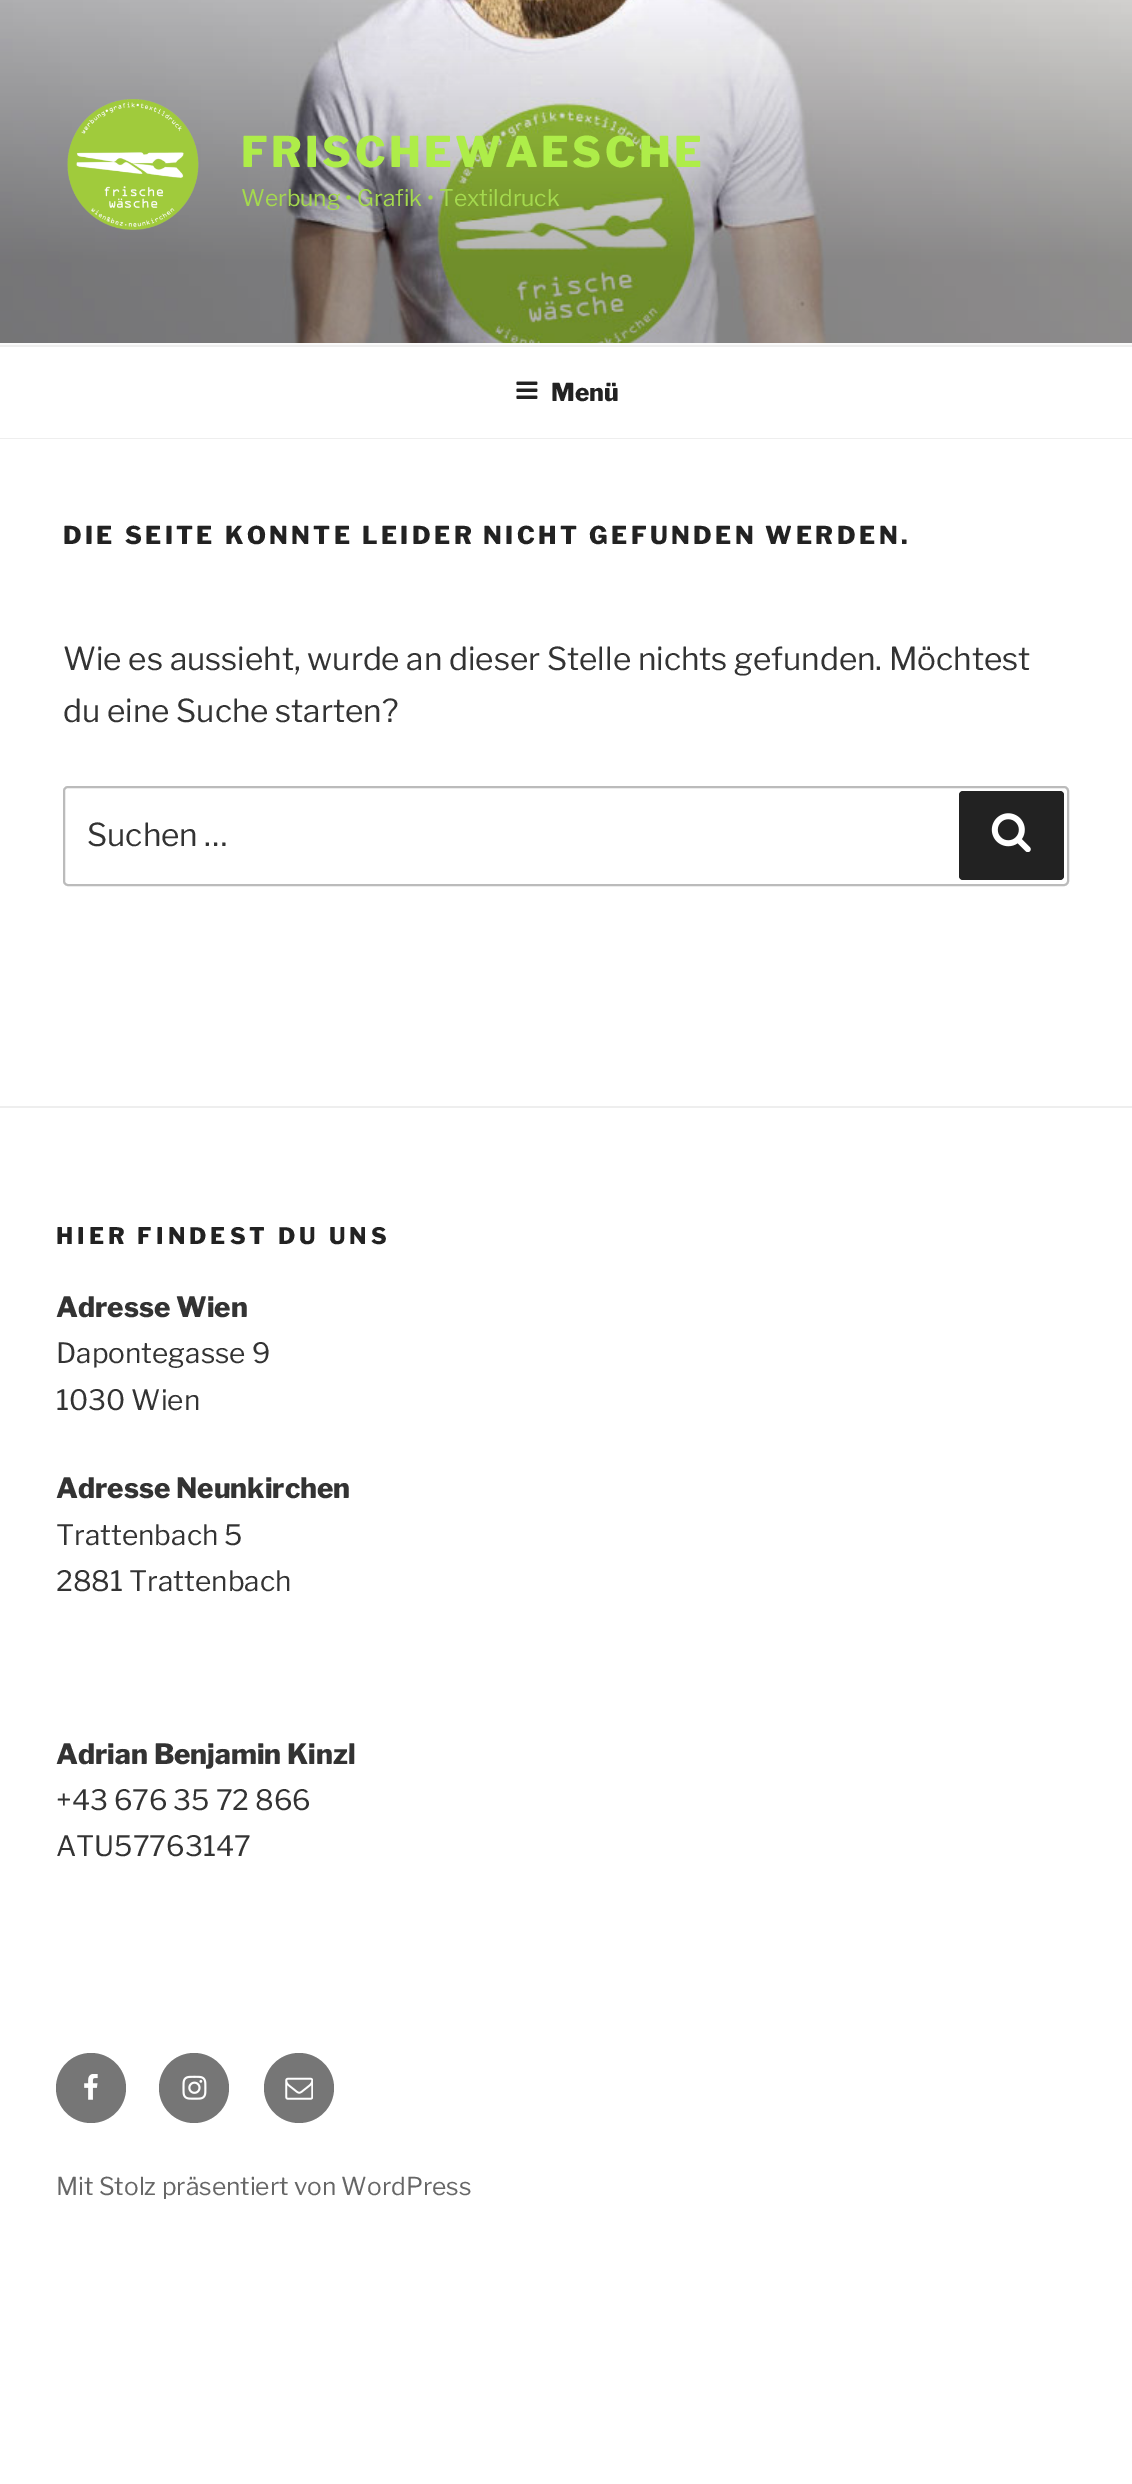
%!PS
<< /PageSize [1132 2484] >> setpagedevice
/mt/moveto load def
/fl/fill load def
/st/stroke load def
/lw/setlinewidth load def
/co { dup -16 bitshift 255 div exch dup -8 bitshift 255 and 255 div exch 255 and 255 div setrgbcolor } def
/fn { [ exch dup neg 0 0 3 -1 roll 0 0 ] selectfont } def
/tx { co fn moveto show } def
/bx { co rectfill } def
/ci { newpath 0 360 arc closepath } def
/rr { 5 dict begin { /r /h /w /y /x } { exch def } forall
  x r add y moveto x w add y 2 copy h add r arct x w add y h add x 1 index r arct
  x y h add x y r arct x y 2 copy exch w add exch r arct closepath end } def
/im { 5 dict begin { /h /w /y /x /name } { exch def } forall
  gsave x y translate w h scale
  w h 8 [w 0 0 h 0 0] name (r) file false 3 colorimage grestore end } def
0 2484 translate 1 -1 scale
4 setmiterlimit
0 0 1132 2484 16#FFFFFF bx
0 343 1132 2 16#FAFAFA bx
(media/1.raw) 0 0 1132 343 im
(media/2.raw) 67 99 132 131 im
0 345 1132 2 16#EEEEEE bx
0 438 1132 1 16#EEEEEE bx
(media/3.raw) 516 381 22 18 im
16#BBBBBB co
2 lw
64 787 1004 98 4 rr st
16#222222 co
959 791 105 89 4 rr fl
(media/4.raw) 991 813 40 39 im
0 1106 1132 2 16#EEEEEE bx
16#767676 co
91 2088 35 ci fl
(media/5.raw) 84 2074 14 26 im
194 2088 35 ci fl
(media/6.raw) 182 2075 25 25 im
299 2088 35 ci fl
(media/7.raw) 285 2077 28 23 im
/LibreFranklin-Thin 42 fn
16#AEED49 co
241 167 mt 3.4 0 (FRISCHEWAESCHE) ashow
(Werbung • Grafik • Textildruck) 241 206 /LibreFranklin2-Thin 22.75 16#A4D94E tx
(Menü) 551 401 /LibreFranklin-Thin 24.5 16#222222 tx
63 544 mt 3.45 0 (DIE SEITE KONNTE LEIDER NICHT GEFUNDEN WERDEN.) ashow
(Wie es aussieht, wurde an dieser Stelle nichts gefunden. Möchtest) 63 670 /LibreFranklin2-Thin 31.5 16#333333 tx
(du eine Suche starten?) 63 722 /LibreFranklin2-Thin 31.5 16#333333 tx
(Suchen …) 87 846 /LibreFranklin2-Thin 31.5 16#333333 tx
/LibreFranklin-Thin 22.75 fn
16#222222 co
56 1244 mt 4.1 0 (HIER FINDEST DU UNS) ashow
(Adresse Wien) 56 1317 /LibreFranklin-Thin 28 16#333333 tx
(Dapontegasse 9) 56 1363 /LibreFranklin2-Thin 28 16#333333 tx
(1030 Wien) 56 1410 /LibreFranklin2-Thin 28 16#333333 tx
(Adresse Neunkirchen) 56 1498 /LibreFranklin-Thin 28 16#333333 tx
(Trattenbach 5) 56 1545 /LibreFranklin2-Thin 28 16#333333 tx
(2881 Trattenbach) 56 1591 /LibreFranklin2-Thin 28 16#333333 tx
(Adrian Benjamin Kinzl) 56 1764 /LibreFranklin-Thin 28 16#333333 tx
(+43 676 35 72 866) 56 1810 /LibreFranklin2-Thin 28 16#333333 tx
(ATU57763147) 56 1856 /LibreFranklin2-Thin 28 16#333333 tx
(Mit Stolz präsentiert von WordPress) 56 2195 /LibreFranklin2-Thin 24.5 16#666666 tx
showpage
